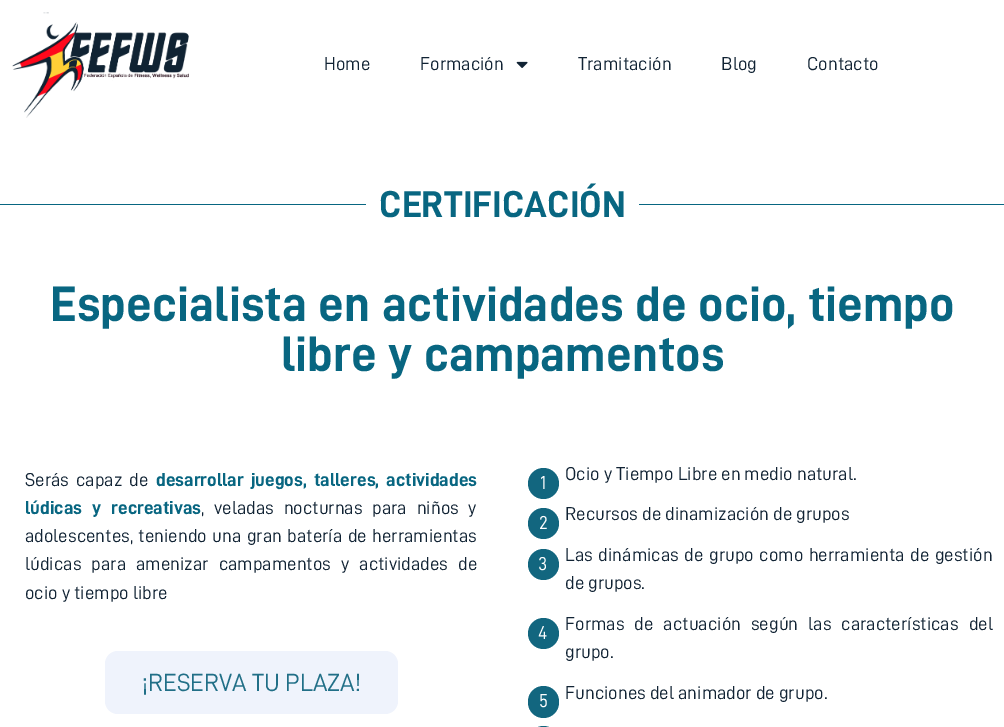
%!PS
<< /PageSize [1004 727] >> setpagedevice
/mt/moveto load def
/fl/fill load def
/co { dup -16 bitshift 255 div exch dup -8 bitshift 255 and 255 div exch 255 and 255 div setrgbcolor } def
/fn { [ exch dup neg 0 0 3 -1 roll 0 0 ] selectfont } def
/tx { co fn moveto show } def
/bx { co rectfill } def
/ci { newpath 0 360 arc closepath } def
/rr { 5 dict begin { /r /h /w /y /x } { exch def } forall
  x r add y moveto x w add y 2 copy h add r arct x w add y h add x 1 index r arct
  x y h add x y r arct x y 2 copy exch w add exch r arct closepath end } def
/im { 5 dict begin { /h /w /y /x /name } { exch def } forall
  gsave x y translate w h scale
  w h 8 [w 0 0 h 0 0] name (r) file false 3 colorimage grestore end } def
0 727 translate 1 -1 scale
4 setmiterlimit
0 0 1004 727 16#FFFFFF bx
(media/1.raw) 12 12 177 106 im
(media/2.raw) 516 61 12 7 im
0 204 366 1 16#086681 bx
639 204 365 1 16#086681 bx
16#EFF3FC co
105 651 293 63 13 rr fl
16#12667F co
543.5 483.5 15.5 ci fl
543.5 523.5 15.5 ci fl
543.5 564.5 15.5 ci fl
543.5 633.5 15.5 ci fl
528 686 31 32 15.5 rr fl
528 726 31 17 15.5 rr fl
(Home) 324 70 /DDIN-Regular 18.75 16#112334 tx
(Formación) 420 70 /DDIN-Regular 18.75 16#112334 tx
(Tramitación) 578 70 /DDIN-Regular 18.75 16#112334 tx
(Blog) 721 70 /DDIN-Regular 18.75 16#112334 tx
(Contacto) 807 70 /DDIN-Regular 18.75 16#112334 tx
(CERTIFICACIÓN) 379 217 /DDIN-Bold 37.5 16#086681 tx
(Especialista en actividades de ocio, tiempo) 50 321 /DDIN-Bold 50 16#086681 tx
(libre y campamentos) 281 371 /DDIN-Bold 50 16#086681 tx
/DDIN-Regular 18.75 fn
16#112334 co
25 486 mt 3 0 32 (Serás capaz de) widthshow
/DDIN-Bold 18.75 fn
16#086681 co
156 486 mt 3 0 32 (desarrollar juegos, talleres, actividades) widthshow
25 514 mt 5.75 0 32 (lúdicas y recreativas) widthshow
/DDIN-Regular 18.75 fn
16#112334 co
201 514 mt 5.75 0 32 (, veladas nocturnas para niños y) widthshow
25 542 mt 1.5 0 32 (adolescentes, teniendo una gran batería de herramientas) widthshow
25 570 mt 6 0 32 (lúdicas para amenizar campamentos y actividades de) widthshow
(ocio y tiempo libre) 25 599 /DDIN-Regular 18.75 16#112334 tx
(¡RESERVA TU PLAZA!) 142 691 /DDIN-Regular 25 16#216F87 tx
(1) 540 489 /DDIN-Regular 18.75 16#FFFFFF tx
(Ocio y Tiempo Libre en medio natural.) 565 480 /DDIN-Regular 18.75 16#112334 tx
(2) 539 529 /DDIN-Regular 18.75 16#FFFFFF tx
(Recursos de dinamización de grupos) 565 520 /DDIN-Regular 18.75 16#112334 tx
(3) 538 570 /DDIN-Regular 18.75 16#FFFFFF tx
16#112334 co
565 561 mt 1.5 0 32 (Las dinámicas de grupo como herramienta de gestión) widthshow
(de grupos.) 565 589 /DDIN-Regular 18.75 16#112334 tx
(4) 538 639 /DDIN-Regular 18.75 16#FFFFFF tx
16#112334 co
565 630 mt 6 0 32 (Formas de actuación según las características del) widthshow
(grupo.) 565 658 /DDIN-Regular 18.75 16#112334 tx
(5) 539 707 /DDIN-Regular 18.75 16#FFFFFF tx
(Funciones del animador de grupo.) 565 699 /DDIN-Regular 18.75 16#112334 tx
showpage
